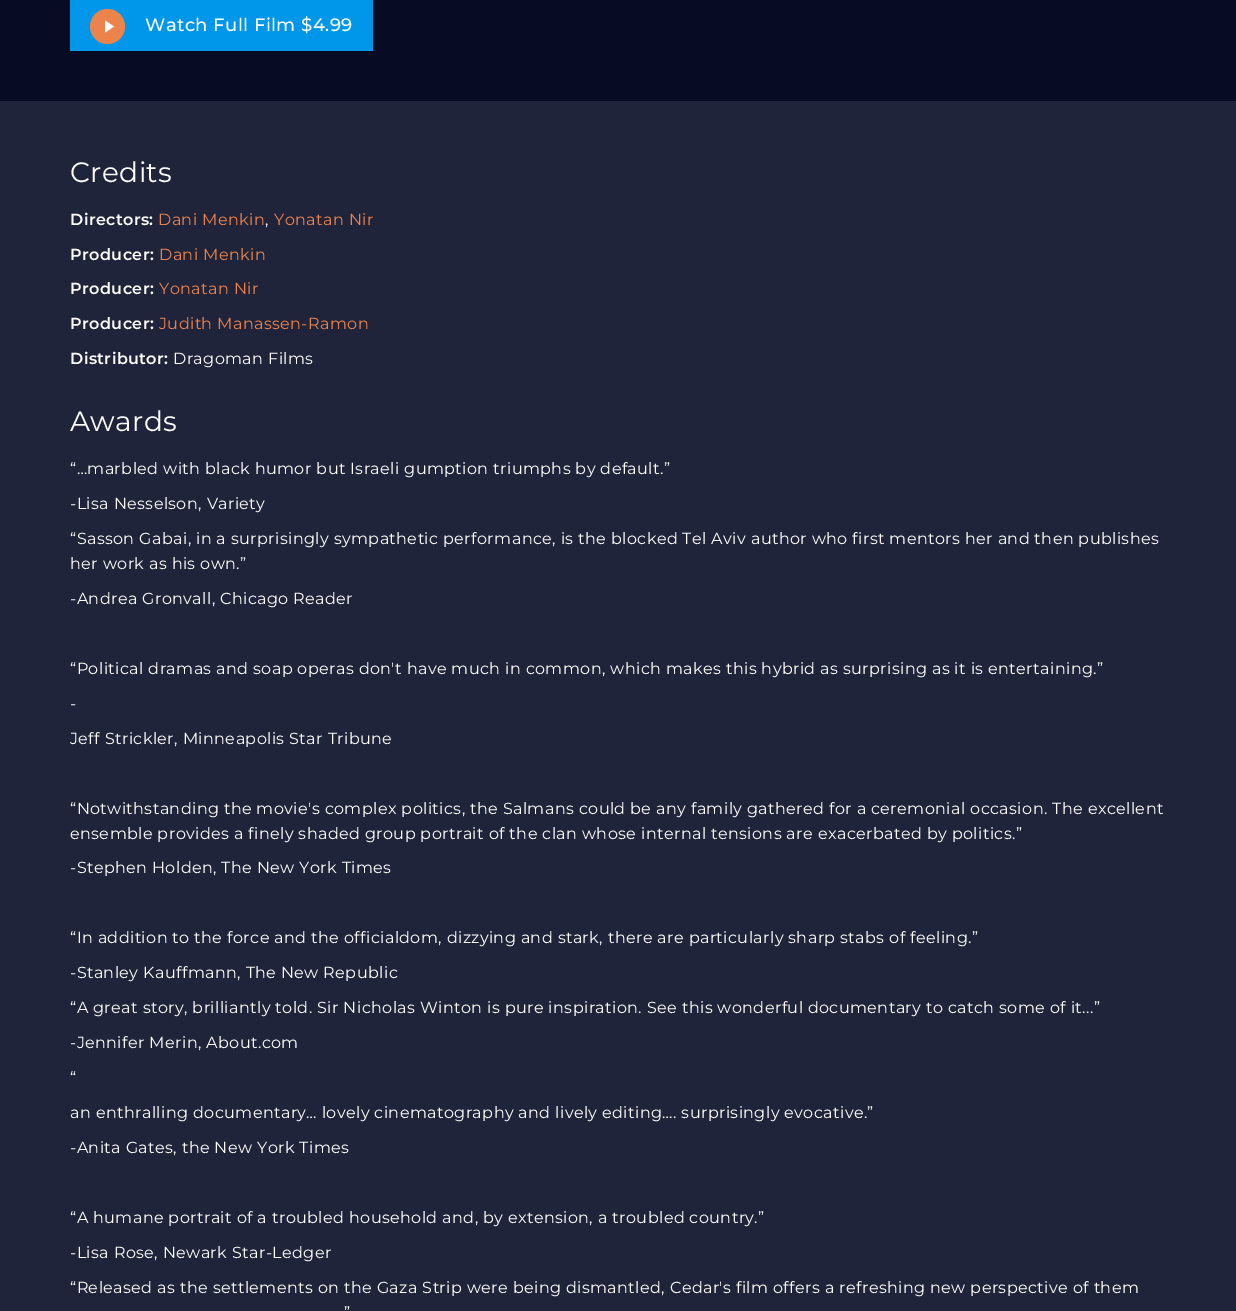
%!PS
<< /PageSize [1236 1311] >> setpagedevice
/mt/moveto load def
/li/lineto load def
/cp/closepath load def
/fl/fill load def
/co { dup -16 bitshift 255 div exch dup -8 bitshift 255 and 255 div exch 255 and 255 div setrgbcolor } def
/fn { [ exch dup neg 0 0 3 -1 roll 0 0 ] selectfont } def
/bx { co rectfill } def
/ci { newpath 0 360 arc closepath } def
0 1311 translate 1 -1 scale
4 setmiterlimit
0 0 1236 1311 16#070C24 bx
70 0 303 51 16#0097EA bx
16#EC834B co
107.5 26.5 17.5 ci fl
16#FFFFFF co
105 20.5 mt 105 32.5 li 114 26.5 li cp eofill
0 101 1236 1210 16#20243A bx
/Montserrat-Medium 18 fn
16#FFFFFF co
145 31 mt .4 0 (Watch Full Film $4.99) ashow
/Montserrat-Regular 28 fn
70 182 mt .4 0 (Credits) ashow
/Montserrat-SemiBold 16 fn
70 225 mt .4 0 (Directors:) ashow
/Montserrat-Regular 16 fn
16#EC834B co
158 225 mt .4 0 (Dani Menkin) ashow
16#FFFFFF co
265 225 mt .4 0 (,) ashow
16#EC834B co
274 225 mt .4 0 (Yonatan Nir) ashow
/Montserrat-SemiBold 16 fn
16#FFFFFF co
70 260 mt .4 0 (Producer:) ashow
/Montserrat-Regular 16 fn
16#EC834B co
159 260 mt .4 0 (Dani Menkin) ashow
/Montserrat-SemiBold 16 fn
16#FFFFFF co
70 294 mt .4 0 (Producer:) ashow
/Montserrat-Regular 16 fn
16#EC834B co
159 294 mt .4 0 (Yonatan Nir) ashow
/Montserrat-SemiBold 16 fn
16#FFFFFF co
70 329 mt .4 0 (Producer:) ashow
/Montserrat-Regular 16 fn
16#EC834B co
159 329 mt .4 0 (Judith Manassen-Ramon) ashow
/Montserrat-SemiBold 16 fn
16#FFFFFF co
70 364 mt .4 0 (Distributor:) ashow
/Montserrat-Regular 16 fn
173 364 mt .4 0 (Dragoman Films) ashow
/Montserrat-Regular 28 fn
70 431 mt .4 0 (Awards) ashow
/Montserrat-Regular 16 fn
70 474 mt .4 0 (“…marbled with black humor but Israeli gumption triumphs by default.”) ashow
70 509 mt .4 0 (-Lisa Nesselson, Variety) ashow
70 544 mt .4 0 (“Sasson Gabai, in a surprisingly sympathetic performance, is the blocked Tel Aviv author who first mentors her and then publishes) ashow
70 569 mt .4 0 (her work as his own.”) ashow
70 604 mt .4 0 (-Andrea Gronvall, Chicago Reader) ashow
70 674 mt .4 0 (“Political dramas and soap operas don't have much in common, which makes this hybrid as surprising as it is entertaining.”) ashow
70 709 mt .4 0 (-) ashow
70 744 mt .4 0 (Jeff Strickler, Minneapolis Star Tribune) ashow
70 814 mt .4 0 (“Notwithstanding the movie's complex politics, the Salmans could be any family gathered for a ceremonial occasion. The excellent) ashow
70 839 mt .4 0 (ensemble provides a finely shaded group portrait of the clan whose internal tensions are exacerbated by politics.”) ashow
70 873 mt .4 0 (-Stephen Holden, The New York Times) ashow
70 943 mt .4 0 (“In addition to the force and the officialdom, dizzying and stark, there are particularly sharp stabs of feeling.”) ashow
70 978 mt .4 0 (-Stanley Kauffmann, The New Republic) ashow
70 1013 mt .4 0 (“A great story, brilliantly told. Sir Nicholas Winton is pure inspiration. See this wonderful documentary to catch some of it...”) ashow
70 1048 mt .4 0 (-Jennifer Merin, About.com) ashow
70 1083 mt .4 0 (“) ashow
70 1118 mt .4 0 (an enthralling documentary… lovely cinematography and lively editing…. surprisingly evocative.”) ashow
70 1153 mt .4 0 (-Anita Gates, the New York Times) ashow
70 1223 mt .4 0 (“A humane portrait of a troubled household and, by extension, a troubled country.”) ashow
70 1258 mt .4 0 (-Lisa Rose, Newark Star-Ledger) ashow
70 1293 mt .4 0 (“Released as the settlements on the Gaza Strip were being dismantled, Cedar's film offers a refreshing new perspective of them) ashow
344 1318 mt .4 0 (”) ashow
showpage
